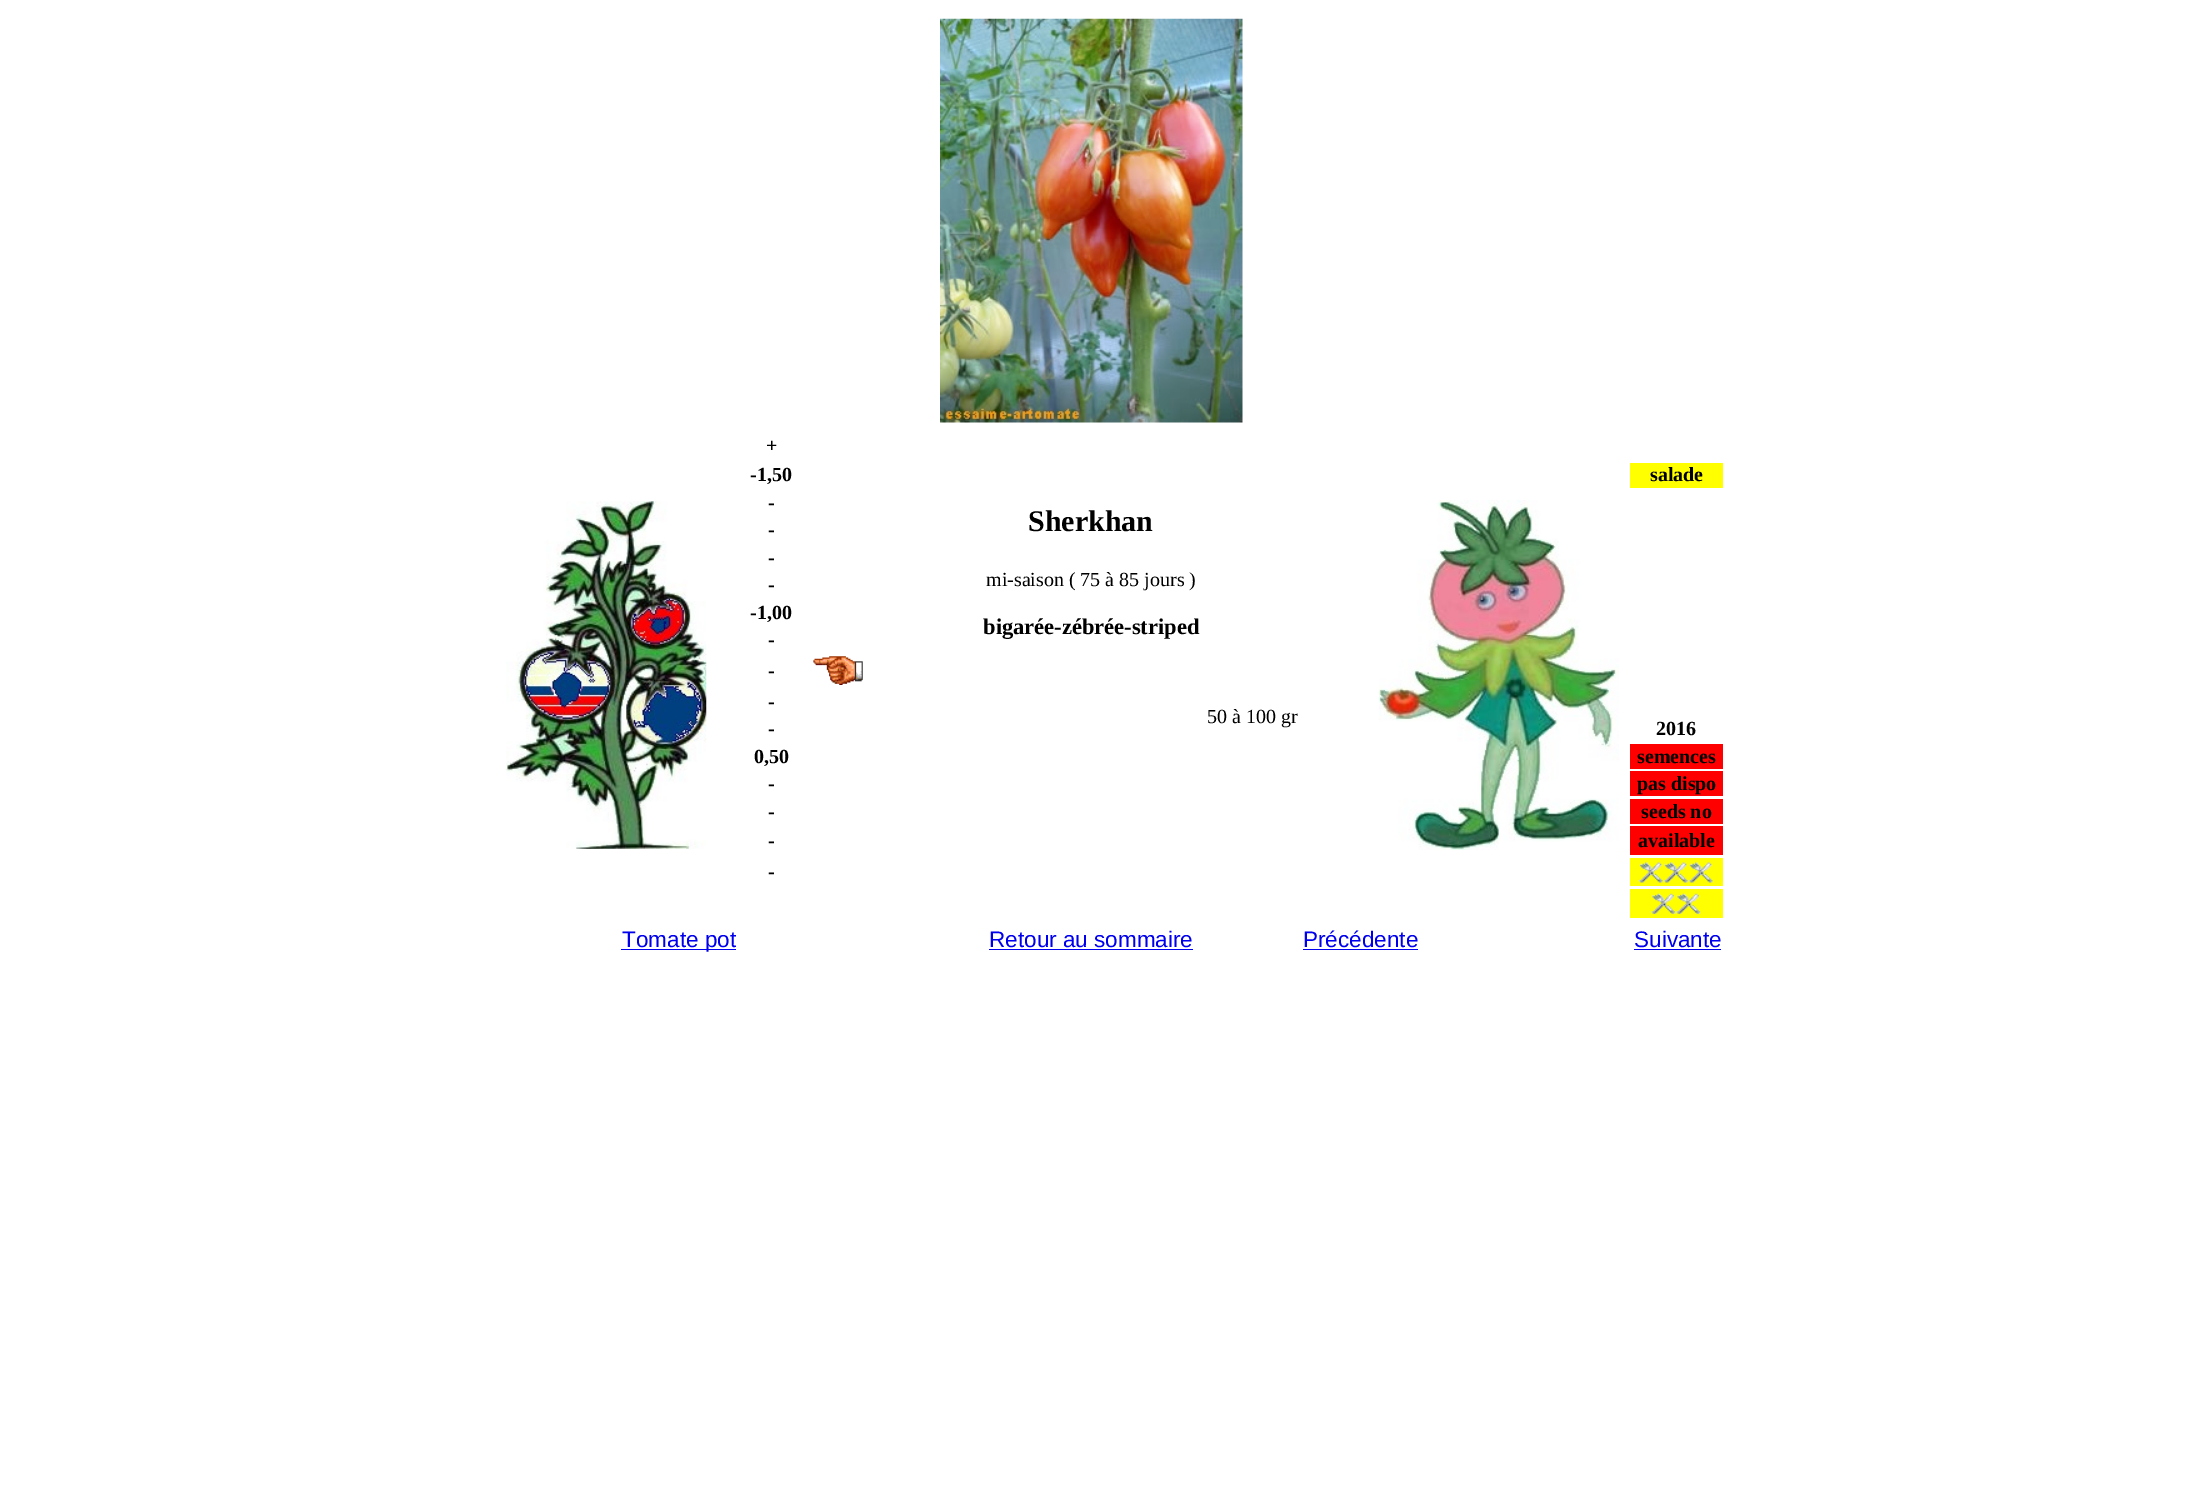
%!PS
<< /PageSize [2199 1508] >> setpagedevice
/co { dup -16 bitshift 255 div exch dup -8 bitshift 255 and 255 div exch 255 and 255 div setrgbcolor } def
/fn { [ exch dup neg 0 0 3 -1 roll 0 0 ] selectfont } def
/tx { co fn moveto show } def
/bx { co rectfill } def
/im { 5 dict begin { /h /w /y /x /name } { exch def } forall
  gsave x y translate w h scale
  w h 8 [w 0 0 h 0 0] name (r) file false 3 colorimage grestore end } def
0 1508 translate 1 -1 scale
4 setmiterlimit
0 0 2199 1508 16#FFFFFF bx
(media/1.raw) 940 18 303 405 im
(media/2.raw) 506 501 201 348 im
(media/3.raw) 1378 500 241 350 im
1630 463 93 25 16#FFFF00 bx
(media/4.raw) 813 656 50 29 im
1630 744 93 25 16#FF0000 bx
1630 771 93 25 16#FF0000 bx
1630 799 93 25 16#FF0000 bx
1630 826 93 29 16#FF0000 bx
1630 858 93 28 16#FFFF00 bx
(media/5.raw) 1638 862 25 21 im
(media/5.raw) 1663 862 25 21 im
(media/6.raw) 1688 862 25 21 im
1630 889 93 29 16#FFFF00 bx
(media/7.raw) 1651 893 25 21 im
(media/7.raw) 1676 893 25 21 im
621 949 115 1 16#0000EE bx
989 949 204 1 16#0000EE bx
1303 949 115 1 16#0000EE bx
1634 949 87 1 16#0000EE bx
(+) 766 452 /LiberationSerif-Bold 20 16#000000 tx
(Sherkhan) 1028 531 /LiberationSerif-Bold 30 16#000000 tx
(mi-saison \( 75 à 85 jours \)) 986 586 /LiberationSerif-Regular 20 16#000000 tx
(bigarée-zébrée-striped) 983 634 /LiberationSerif-Bold 22.5 16#000000 tx
(50 à 100 gr) 1207 723 /LiberationSerif-Regular 20 16#000000 tx
(-1,50) 750 481 /LiberationSerif-Bold 20 16#000000 tx
(salade) 1650 481 /LiberationSerif-Bold 20 16#000000 tx
(-) 768 509 /LiberationSerif-Bold 20 16#000000 tx
(-) 768 536 /LiberationSerif-Bold 20 16#000000 tx
(-) 768 564 /LiberationSerif-Bold 20 16#000000 tx
(-) 768 591 /LiberationSerif-Bold 20 16#000000 tx
(-1,00) 750 619 /LiberationSerif-Bold 20 16#000000 tx
(-) 768 646 /LiberationSerif-Bold 20 16#000000 tx
(-) 768 677 /LiberationSerif-Bold 20 16#000000 tx
(-) 768 708 /LiberationSerif-Bold 20 16#000000 tx
(-) 768 735 /LiberationSerif-Bold 20 16#000000 tx
(2016) 1656 735 /LiberationSerif-Bold 20 16#000000 tx
(0,50) 754 763 /LiberationSerif-Bold 20 16#000000 tx
(semences) 1637 763 /LiberationSerif-Bold 20 16#000000 tx
(-) 768 790 /LiberationSerif-Bold 20 16#000000 tx
(pas dispo) 1637 790 /LiberationSerif-Bold 20 16#000000 tx
(-) 768 818 /LiberationSerif-Bold 20 16#000000 tx
(seeds no) 1641 818 /LiberationSerif-Bold 20 16#000000 tx
(-) 768 847 /LiberationSerif-Bold 20 16#000000 tx
(available) 1638 847 /LiberationSerif-Bold 20 16#000000 tx
(-) 768 878 /LiberationSerif-Bold 20 16#000000 tx
(Tomate pot) 622 947 /LiberationSans-Regular 22.5 16#0000EE tx
(Retour au sommaire) 989 947 /LiberationSans-Regular 22.5 16#0000EE tx
(Précédente) 1303 947 /LiberationSans-Regular 22.5 16#0000EE tx
(Suivante) 1634 947 /LiberationSans-Regular 22.5 16#0000EE tx
showpage
